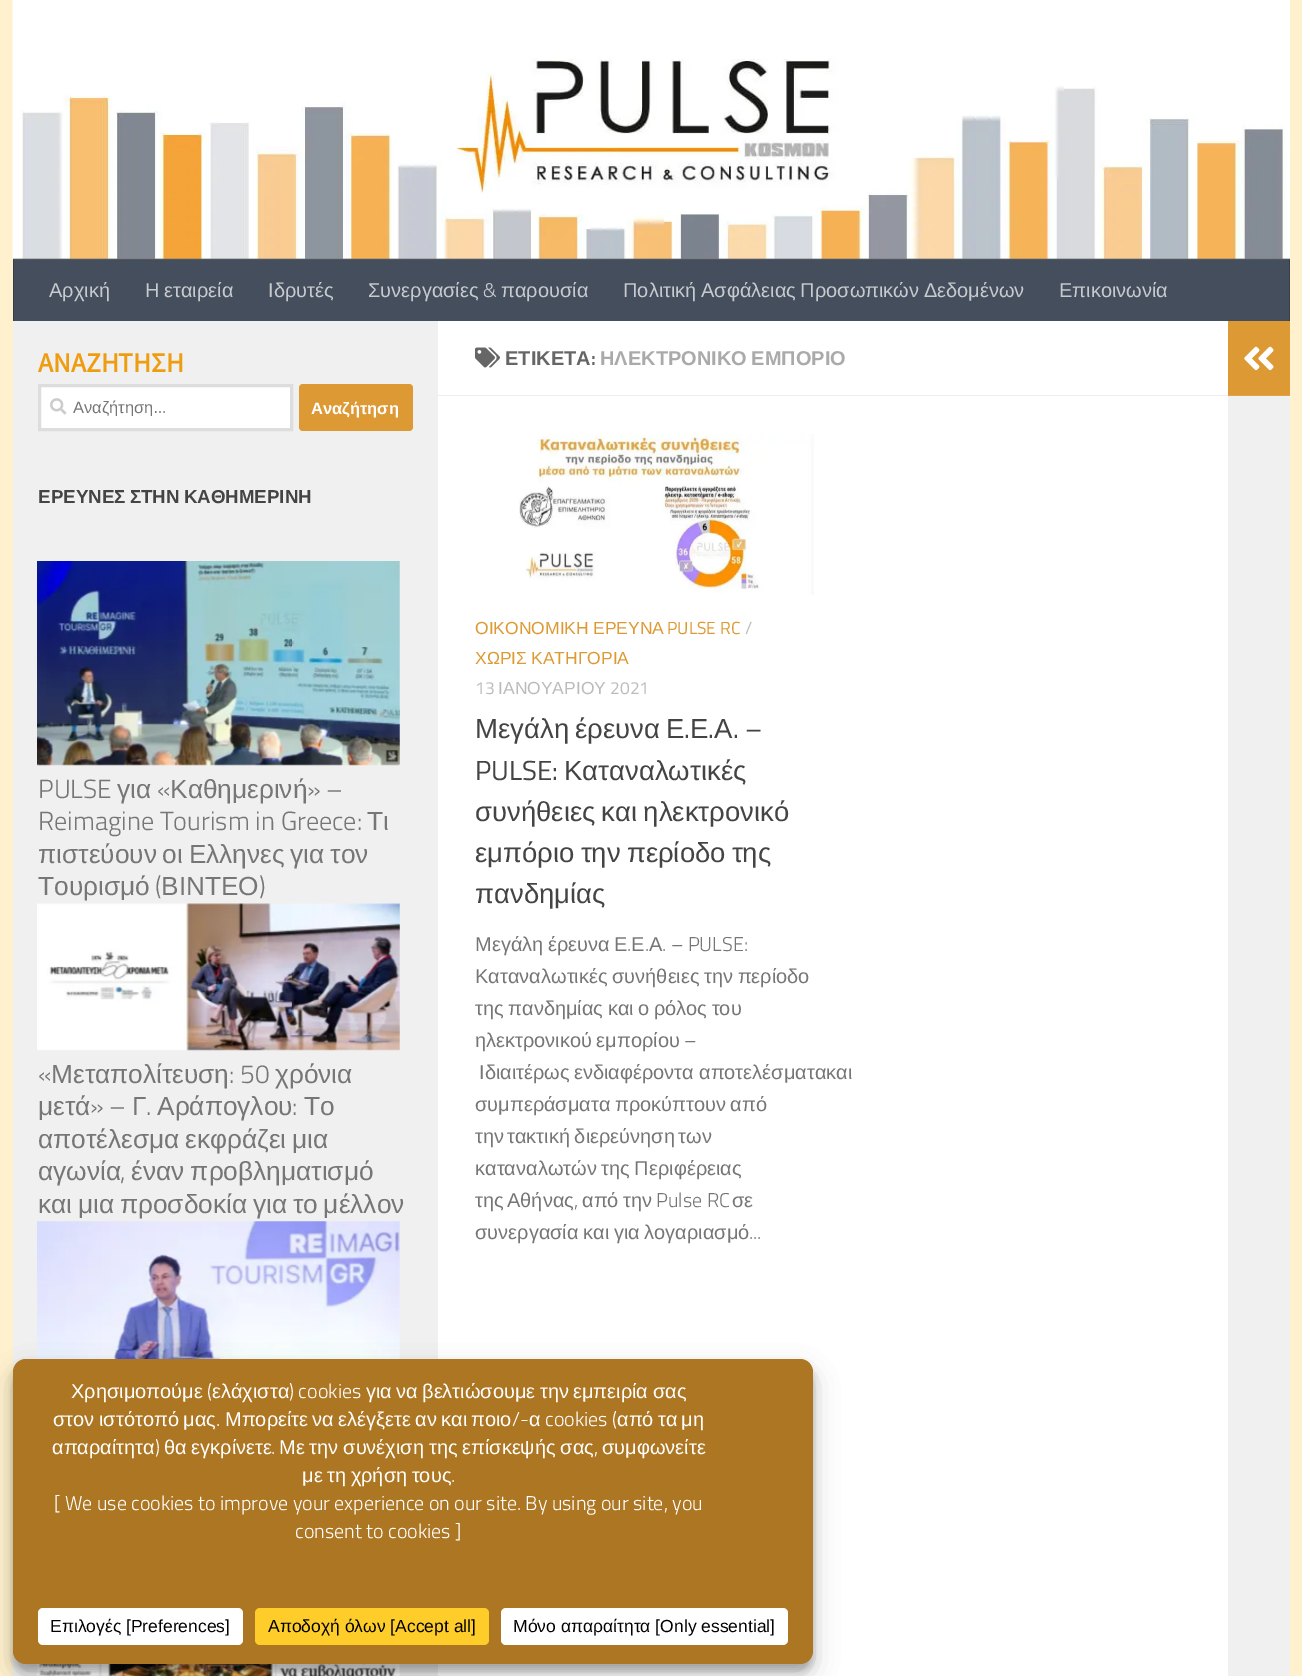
%!PS
<< /PageSize [1302 1676] /PageUsesTransparency true >> setpagedevice
/mt/moveto load def
/li/lineto load def
/cp/closepath load def
/fl/fill load def
/st/stroke load def
/gs/gsave load def
/gr/grestore load def
/lw/setlinewidth load def
/co { dup -16 bitshift 255 div exch dup -8 bitshift 255 and 255 div exch 255 and 255 div setrgbcolor } def
/fn { [ exch dup neg 0 0 3 -1 roll 0 0 ] selectfont } def
/tx { co fn moveto show } def
/bx { co rectfill } def
/al { dup .setfillconstantalpha .setstrokeconstantalpha } def
/rr { 5 dict begin { /r /h /w /y /x } { exch def } forall
  x r add y moveto x w add y 2 copy h add r arct x w add y h add x 1 index r arct
  x y h add x y r arct x y 2 copy exch w add exch r arct closepath end } def
/sh { 12 dict begin { /a /b /q /h /w /y /x } { exch def } forall gsave /was 0 def
  9 -2 -9 { dup b mul 4 div /e exch def 1 sub .425 mul 2.718 exch exp 1 add a .99 .min exch div /now exch def
    1 1 now sub 1 was sub div sub al /was now def
    w h .min e 2 mul add 0 gt { x e sub y e sub w e 2 mul add h e 2 mul add
      q e add b .6 mul add w h .min 2 div e add .min 0 .max rr fill } if } for grestore end } def
/im { 5 dict begin { /h /w /y /x /name } { exch def } forall
  gsave x y translate w h scale
  w h 8 [w 0 0 h 0 0] name (r) file false 3 colorimage grestore end } def
0 .pushpdf14devicefilter
0 1676 translate 1 -1 scale
4 setmiterlimit
0 0 1302 1676 16#FFF1CD bx
(media/1.raw) 12 0 1278 259 im
0.2 al
13 258 1277 1 16#000000 bx
1 al
14 260 1275 61 16#454E5C bx
13 259 1277 1 16#4E5764 bx
1289 259 1 62 16#373E4A bx
1289 259 1 1 16#414853 bx
13 259 1 62 16#373E4A bx
13 259 1 1 16#414853 bx
438 321 790 1355 16#FFFFFF bx
13 321 425 1355 16#F0F0F0 bx
16#FFFFFF co
39.5 385.5 mt 291.5 385.5 li 291.5 429.5 li 39.5 429.5 li cp gs fl gr
16#DDDDDD co
3 lw
st
(media/2.raw) 50 398 17 17 im
16#DD9933 co
299 384 114 47 4 rr fl
(media/3.raw) 37 561 363 205 im
(media/4.raw) 37 903 363 148 im
(media/5.raw) 37 1221 363 138 im
(media/6.raw) 37 1664 363 12 im
438 395 790 1 16#EEEEEE bx
(media/7.raw) 475 347 25 21 im
(media/8.raw) 519 434 295 161 im
1228 321 62 74 16#DD9933 bx
1228 395 62 1 16#E0A347 bx
(media/9.raw) 1244 346 30 25 im
1228 396 62 1280 16#F0F0F0 bx
16#000000 co
13 1366 800 305 13 4 .23 sh
13 1371 800 305 13 12.5 .19 sh
16#AD7623 co
13 1359 800 305 13 rr fl
16#FFFFFF co
38 1608 205 37 5 rr fl
16#FFCD2A co
255 1608 234 37 5 rr fl
16#FFFFFF co
501 1608 287 37 5 rr fl
(Αρχική) 49 297 /LiberationSans-Regular 20 16#C7CACE tx
145 297 mt -1 0 32 (Η εταιρεία) widthshow
(Ιδρυτές) 268 297 /LiberationSans-Regular 20 16#C7CACE tx
(Συνεργασίες) 368 297 /LiberationSans-Regular 20 16#C7CACE tx
(&) 483 297 /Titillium-Light 20 16#C7CACE tx
(παρουσία) 501 297 /LiberationSans-Regular 20 16#C7CACE tx
623 297 mt -1 0 32 (Πολιτική Ασφάλειας Προσωπικών Δεδομένων) widthshow
(Επικοινωνία) 1059 297 /LiberationSans-Regular 20 16#C7CACE tx
(ΑΝΑΖΗΤΗΣΗ) 38 372 /SourceSansPro-Bold 27.5 16#EF9D10 tx
gs
73 398 191 18 rectclip
(Αναζήτηση) 73 413 /LiberationSans-Regular 16.5 16#767676 tx
gr
(…) 154 413 /Titillium-Regular 16.5 16#767676 tx
(Αναζήτηση) 311 414 /LiberationSans-Bold 16.5 16#FFFFFF tx
/LiberationSans-Bold 18.75 fn
16#444444 co
38 503 mt -1 0 32 (ΕΡΕΥΝΕΣ ΣΤΗΝ ΚΑΘΗΜΕΡΙΝΗ) widthshow
(PULSE) 38 798 /Titillium-Light 26.25 16#767676 tx
(για) 117 798 /LiberationSans-Regular 26.25 16#767676 tx
(«) 157 798 /Titillium-Light 26.25 16#767676 tx
(Καθημερινή) 170 798 /LiberationSans-Regular 26.25 16#767676 tx
(» –) 307 798 /Titillium-Light 26.25 16#767676 tx
(Reimagine Tourism in Greece:) 38 830 /Titillium-Light 26.25 16#767676 tx
(Τι) 367 830 /LiberationSans-Regular 26.25 16#767676 tx
38 863 mt -1.5 0 32 (πιστεύουν οι Ελληνες για τον) widthshow
(Τουρισμό) 38 895 /LiberationSans-Regular 26.25 16#767676 tx
(\() 155 895 /Titillium-Light 26.25 16#767676 tx
(ΒΙΝΤΕΟ) 161 895 /LiberationSans-Regular 26.25 16#767676 tx
(\)) 259 895 /Titillium-Light 26.25 16#767676 tx
(«) 38 1083 /Titillium-Light 26.25 16#767676 tx
(Μεταπολίτευση) 51 1083 /LiberationSans-Regular 26.25 16#767676 tx
(: 50) 229 1083 /Titillium-Light 26.25 16#767676 tx
(χρόνια) 275 1083 /LiberationSans-Regular 26.25 16#767676 tx
(μετά) 38 1115 /LiberationSans-Regular 26.25 16#767676 tx
(» –) 90 1115 /Titillium-Light 26.25 16#767676 tx
(Γ) 132 1115 /LiberationSans-Regular 26.25 16#767676 tx
(Αράπογλου) 157 1115 /LiberationSans-Regular 26.25 16#767676 tx
(:) 292 1115 /Titillium-Light 26.25 16#767676 tx
(Το) 304 1115 /LiberationSans-Regular 26.25 16#767676 tx
(.) 146 1115 /Titillium-Light 26.25 16#767676 tx
/LiberationSans-Regular 26.25 fn
38 1148 mt -1.5 0 32 (αποτέλεσμα εκφράζει μια) widthshow
(αγωνία) 38 1180 /LiberationSans-Regular 26.25 16#767676 tx
(,) 120 1180 /Titillium-Light 26.25 16#767676 tx
/LiberationSans-Regular 26.25 fn
131 1180 mt -1 0 32 (έναν προβληματισμό) widthshow
38 1213 mt -1.5 0 32 (και μια προσδοκία για το μέλλον) widthshow
(ΕΤΙΚΕΤΑ) 505 365 /LiberationSans-Bold 20 16#666666 tx
(:) 591 365 /Titillium-SemiBold 20 16#666666 tx
/LiberationSans-Bold 20 fn
16#AAAAAA co
600 365 mt -1 0 32 (ΗΛΕΚΤΡΟΝΙΚΟ ΕΜΠΟΡΙΟ) widthshow
(ΟΙΚΟΝΟΜΙΚΗ) 475 634 /LiberationSans-Regular 17.5 16#DD9933 tx
(ΕΡΕΥΝΑ) 593 634 /LiberationSans-Regular 17.5 16#DD9933 tx
(PULSE RC) 667 634 /Titillium-Regular 17.5 16#DD9933 tx
(/) 745 634 /Titillium-Regular 17.5 16#BBBBBB tx
/LiberationSans-Regular 17.5 fn
16#DD9933 co
475 664 mt -1 0 32 (ΧΩΡΙΣ ΚΑΤΗΓΟΡΙΑ) widthshow
(13) 475 694 /Titillium-Regular 17.5 16#BBBBBB tx
(ΙΑΝΟΥΑΡΙΟΥ) 498 694 /LiberationSans-Regular 17.5 16#BBBBBB tx
(2021) 610 694 /Titillium-Regular 17.5 16#BBBBBB tx
(Μεγάλη) 475 738 /LiberationSans-Regular 27.5 16#444444 tx
(έρευνα) 575 738 /LiberationSans-Regular 27.5 16#444444 tx
(Ε) 666 738 /LiberationSans-Regular 27.5 16#444444 tx
(.) 684 738 /Titillium-Regular 27.5 16#444444 tx
(Ε) 690 738 /LiberationSans-Regular 27.5 16#444444 tx
(.) 708 738 /Titillium-Regular 27.5 16#444444 tx
(Α) 714 738 /LiberationSans-Regular 27.5 16#444444 tx
(. –) 733 738 /Titillium-Regular 27.5 16#444444 tx
(PULSE:) 475 780 /Titillium-Regular 27.5 16#444444 tx
(Καταναλωτικές) 564 780 /LiberationSans-Regular 27.5 16#444444 tx
475 821 mt -1.5 0 32 (συνήθειες και ηλεκτρονικό) widthshow
475 862 mt -1.5 0 32 (εμπόριο την περίοδο της) widthshow
(πανδημίας) 475 903 /LiberationSans-Regular 27.5 16#444444 tx
(Μεγάλη) 475 951 /LiberationSans-Regular 20 16#767676 tx
(έρευνα) 548 951 /LiberationSans-Regular 20 16#767676 tx
(Ε) 614 951 /LiberationSans-Regular 20 16#767676 tx
(.) 627 951 /Titillium-Light 20 16#767676 tx
(Ε) 631 951 /LiberationSans-Regular 20 16#767676 tx
(.) 645 951 /Titillium-Light 20 16#767676 tx
(Α) 649 951 /LiberationSans-Regular 20 16#767676 tx
(. – PULSE:) 662 951 /Titillium-Light 20 16#767676 tx
/LiberationSans-Regular 20 fn
475 983 mt -1 0 32 (Καταναλωτικές συνήθειες την περίοδο) widthshow
475 1015 mt -1 0 32 (της πανδημίας και ο ρόλος του) widthshow
475 1047 mt -1 0 32 (ηλεκτρονικού εμπορίου) widthshow
(–) 684 1047 /Titillium-Light 20 16#767676 tx
(Ιδιαιτέρως) 479 1079 /LiberationSans-Regular 20 16#767676 tx
(ενδιαφέροντα) 574 1079 /LiberationSans-Regular 20 16#767676 tx
(αποτελέσματακαι) 699 1079 /LiberationSans-Regular 20 16#767676 tx
475 1111 mt -1 0 32 (συμπεράσματα προκύπτουν από) widthshow
(την) 475 1143 /LiberationSans-Regular 20 16#767676 tx
507 1143 mt -1 0 32 (τακτική διερεύνηση) widthshow
(των) 678 1143 /LiberationSans-Regular 20 16#767676 tx
475 1175 mt -1 0 32 (καταναλωτών της Περιφέρειας) widthshow
(της) 475 1207 /LiberationSans-Regular 20 16#767676 tx
(Αθήνας) 507 1207 /LiberationSans-Regular 20 16#767676 tx
(,) 574 1207 /Titillium-Light 20 16#767676 tx
/LiberationSans-Regular 20 fn
582 1207 mt -.75 0 32 (από την) widthshow
(Pulse RC) 656 1207 /Titillium-Light 20 16#767676 tx
(σε) 732 1207 /LiberationSans-Regular 20 16#767676 tx
475 1239 mt -1 0 32 (συνεργασία και για λογαριασμό) widthshow
(...) 749 1239 /Titillium-Light 20 16#767676 tx
(Χρησιμοπούμε) 71 1398 /LiberationSans-Regular 20 16#FFFFFF tx
(\() 207 1398 /Titillium-Light 20 16#FFFFFF tx
(ελάχιστα) 212 1398 /LiberationSans-Regular 20 16#FFFFFF tx
(\) cookies) 289 1398 /Titillium-Light 20 16#FFFFFF tx
(για) 366 1398 /LiberationSans-Regular 20 16#FFFFFF tx
(να) 396 1398 /LiberationSans-Regular 20 16#FFFFFF tx
(βελτιώσουμε) 422 1398 /LiberationSans-Regular 20 16#FFFFFF tx
(την) 540 1398 /LiberationSans-Regular 20 16#FFFFFF tx
(εμπειρία) 573 1398 /LiberationSans-Regular 20 16#FFFFFF tx
(σας) 653 1398 /LiberationSans-Regular 20 16#FFFFFF tx
(στον) 53 1426 /LiberationSans-Regular 20 16#FFFFFF tx
(ιστότοπό) 99 1426 /LiberationSans-Regular 20 16#FFFFFF tx
(μας) 183 1426 /LiberationSans-Regular 20 16#FFFFFF tx
(.) 216 1426 /Titillium-Light 20 16#FFFFFF tx
(Μπορείτε) 225 1426 /LiberationSans-Regular 20 16#FFFFFF tx
(να) 312 1426 /LiberationSans-Regular 20 16#FFFFFF tx
(ελέγξετε) 338 1426 /LiberationSans-Regular 20 16#FFFFFF tx
(αν) 415 1426 /LiberationSans-Regular 20 16#FFFFFF tx
(και) 441 1426 /LiberationSans-Regular 20 16#FFFFFF tx
(ποιο) 471 1426 /LiberationSans-Regular 20 16#FFFFFF tx
(/-) 512 1426 /Titillium-Light 20 16#FFFFFF tx
(α) 529 1426 /LiberationSans-Regular 20 16#FFFFFF tx
(cookies \() 545 1426 /Titillium-Light 20 16#FFFFFF tx
(από) 617 1426 /LiberationSans-Regular 20 16#FFFFFF tx
(τα) 658 1426 /LiberationSans-Regular 20 16#FFFFFF tx
(μη) 681 1426 /LiberationSans-Regular 20 16#FFFFFF tx
(απαραίτητα) 52 1454 /LiberationSans-Regular 20 16#FFFFFF tx
(\)) 155 1454 /Titillium-Light 20 16#FFFFFF tx
/LiberationSans-Regular 20 fn
164 1454 mt -.75 0 32 (θα εγκρίνετε) widthshow
(.) 271 1454 /Titillium-Light 20 16#FFFFFF tx
/LiberationSans-Regular 20 fn
279 1454 mt -.75 0 32 (Με την συνέχιση της επίσκεψής σας) widthshow
(,) 594 1454 /Titillium-Light 20 16#FFFFFF tx
(συμφωνείτε) 602 1454 /LiberationSans-Regular 20 16#FFFFFF tx
302 1482 mt -1 0 32 (με τη χρήση τους) widthshow
(.) 451 1482 /Titillium-Light 20 16#FFFFFF tx
([ We use cookies to improve your experience on our site. By using our site, you) 54 1510 /Titillium-Light 20 16#FFFFFF tx
(consent to cookies ]) 295 1538 /Titillium-Light 20 16#FFFFFF tx
(Επιλογές [Preferences]) 50 1632 /LiberationSans-Regular 17.5 16#000000 tx
(Αποδοχή όλων [Accept all]) 268 1632 /LiberationSans-Regular 17.5 16#000000 tx
(Μόνο απαραίτητα [Only essential]) 513 1632 /LiberationSans-Regular 17.5 16#000000 tx
.poppdf14devicefilter showpage
